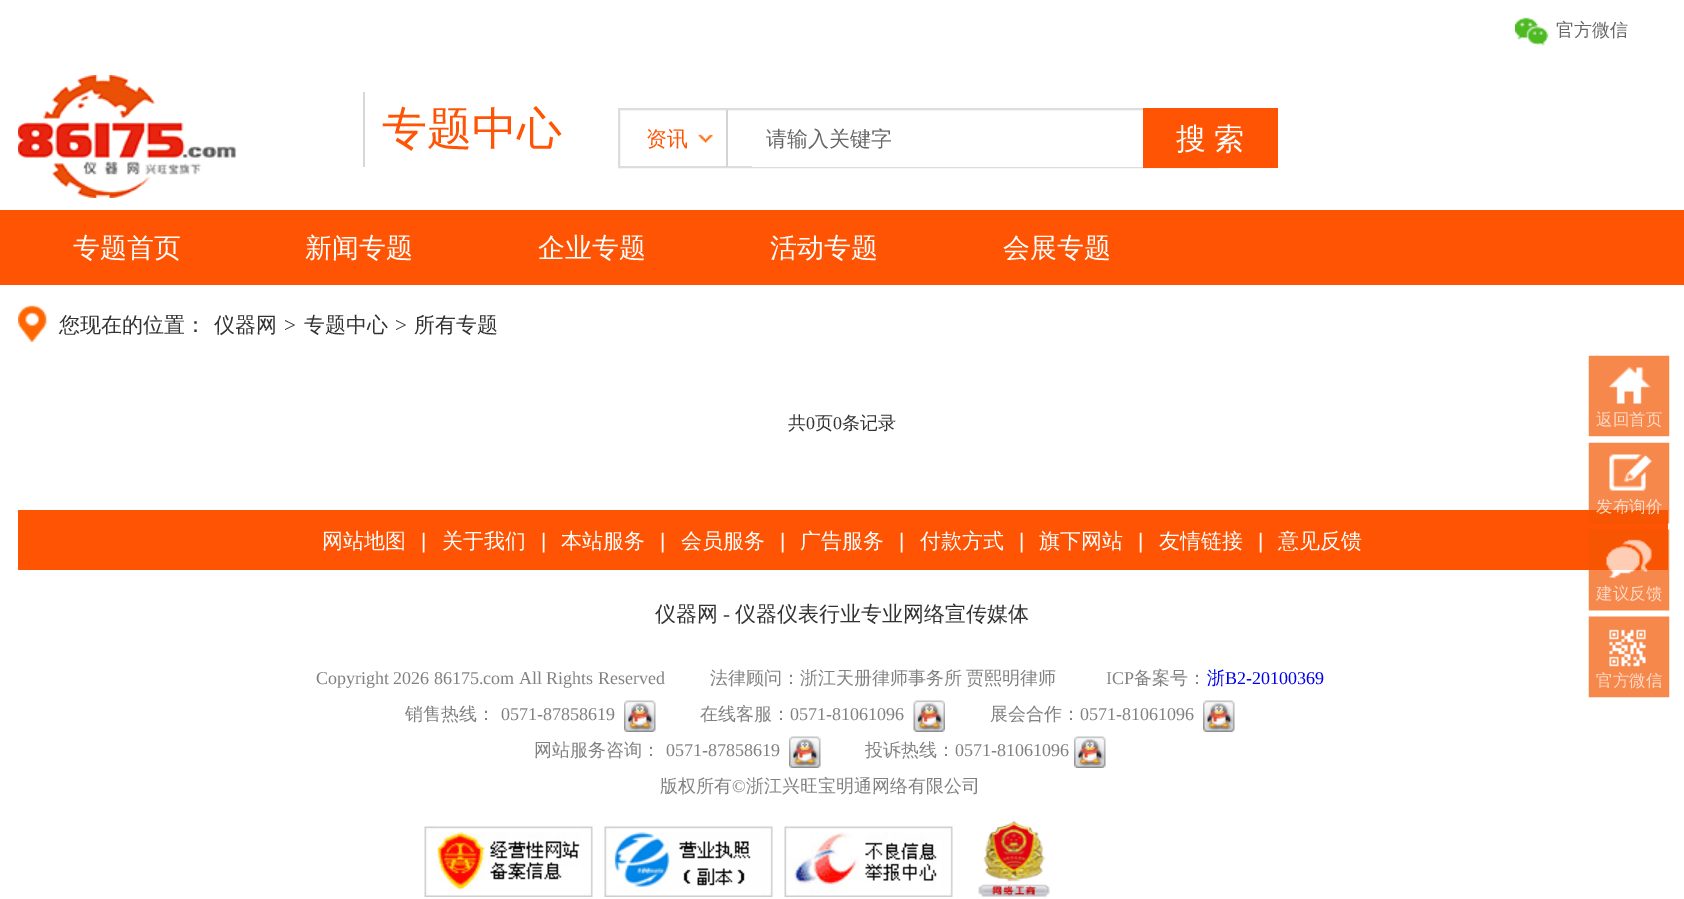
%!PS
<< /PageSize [1684 899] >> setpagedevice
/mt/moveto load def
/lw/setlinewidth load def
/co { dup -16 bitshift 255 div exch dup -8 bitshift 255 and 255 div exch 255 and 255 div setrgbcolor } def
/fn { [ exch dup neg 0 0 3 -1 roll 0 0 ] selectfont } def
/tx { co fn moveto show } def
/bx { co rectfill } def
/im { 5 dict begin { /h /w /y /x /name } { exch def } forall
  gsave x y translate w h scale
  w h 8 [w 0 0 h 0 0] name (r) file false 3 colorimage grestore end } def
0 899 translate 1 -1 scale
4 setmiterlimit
0 0 1684 899 16#FFFFFF bx
(media/1.raw) 1515 17 34 29 im
(media/2.raw) 18 75 218 123 im
363 92 2 75 16#D7D7D7 bx
16#DDDDDD co
2 lw
619 109 598 58 rectstroke
(media/3.raw) 698 134 15 9 im
726 110 2 57 16#D4D4D4 bx
752 166 391 1 16#FFFFFF bx
1143 108 135 60 16#FF5403 bx
0 210 1684 75 16#FF5403 bx
(media/4.raw) 18 305 29 37 im
(media/5.raw) 1588 355 82 82 im
18 510 1650 60 16#FF5403 bx
(media/6.raw) 1588 442 82 82 im
(media/7.raw) 1588 529 82 82 im
(media/8.raw) 1588 616 82 82 im
(media/9.raw) 624 700 32 32 im
(media/10.raw) 913 700 32 32 im
(media/11.raw) 1203 700 32 32 im
(media/9.raw) 789 736 32 32 im
(media/11.raw) 1074 736 32 32 im
(media/12.raw) 424 826 169 71 im
(media/13.raw) 604 826 169 71 im
(media/14.raw) 784 826 169 71 im
(media/15.raw) 978 821 72 76 im
(官方微信) 1556 36 /WenQuanYiZenHei-Medium 18 16#666666 tx
(专题中心) 382 144 /WenQuanYiZenHei-Medium 45 16#FF5403 tx
(资讯) 646 146 /WenQuanYiZenHei-Medium 21 16#FF5403 tx
(请输入关键字) 766 146 /WenQuanYiZenHei-Medium 21 16#666666 tx
/WenQuanYiZenHei-Medium 30 fn
16#FFFFFF co
1176 149 mt -1 0 32 (搜 索) widthshow
(专题首页) 73 257 /WenQuanYiZenHei-Medium 27 16#FFFFFF tx
(新闻专题) 305 257 /WenQuanYiZenHei-Medium 27 16#FFFFFF tx
(企业专题) 538 257 /WenQuanYiZenHei-Medium 27 16#FFFFFF tx
(活动专题) 770 257 /WenQuanYiZenHei-Medium 27 16#FFFFFF tx
(会展专题) 1003 257 /WenQuanYiZenHei-Medium 27 16#FFFFFF tx
(您现在的位置：) 59 332 /WenQuanYiZenHei-Medium 21 16#333333 tx
(仪器网) 214 332 /WenQuanYiZenHei-Medium 21 16#333333 tx
(>) 284 332 /LiberationSerif-Regular 21 16#333333 tx
(专题中心) 304 332 /WenQuanYiZenHei-Medium 21 16#333333 tx
(>) 395 332 /LiberationSerif-Regular 21 16#333333 tx
(所有专题) 414 332 /WenQuanYiZenHei-Medium 21 16#333333 tx
(共) 788 429 /WenQuanYiZenHei-Medium 18 16#333333 tx
(0) 806 429 /LiberationSerif-Regular 18 16#333333 tx
(页) 815 429 /WenQuanYiZenHei-Medium 18 16#333333 tx
(0) 833 429 /LiberationSerif-Regular 18 16#333333 tx
(条记录) 842 429 /WenQuanYiZenHei-Medium 18 16#333333 tx
(返回首页) 1596 425 /WenQuanYiZenHei-Medium 16.5 16#FDDBC9 tx
(发布询价) 1596 512 /WenQuanYiZenHei-Medium 16.5 16#FDDBC9 tx
(建议反馈) 1596 599 /WenQuanYiZenHei-Medium 16.5 16#FDDBC9 tx
(官方微信) 1596 686 /WenQuanYiZenHei-Medium 16.5 16#FDDBC9 tx
(网站地图) 322 548 /WenQuanYiZenHei-Medium 21 16#FFFFFF tx
(|) 421 548 /LiberationSans-Regular 21 16#FFFFFF tx
(关于我们) 442 548 /WenQuanYiZenHei-Medium 21 16#FFFFFF tx
(|) 541 548 /LiberationSans-Regular 21 16#FFFFFF tx
(本站服务) 561 548 /WenQuanYiZenHei-Medium 21 16#FFFFFF tx
(|) 660 548 /LiberationSans-Regular 21 16#FFFFFF tx
(会员服务) 681 548 /WenQuanYiZenHei-Medium 21 16#FFFFFF tx
(|) 780 548 /LiberationSans-Regular 21 16#FFFFFF tx
(广告服务) 800 548 /WenQuanYiZenHei-Medium 21 16#FFFFFF tx
(|) 899 548 /LiberationSans-Regular 21 16#FFFFFF tx
(付款方式) 920 548 /WenQuanYiZenHei-Medium 21 16#FFFFFF tx
(|) 1019 548 /LiberationSans-Regular 21 16#FFFFFF tx
(旗下网站) 1039 548 /WenQuanYiZenHei-Medium 21 16#FFFFFF tx
(|) 1138 548 /LiberationSans-Regular 21 16#FFFFFF tx
(友情链接) 1159 548 /WenQuanYiZenHei-Medium 21 16#FFFFFF tx
(|) 1258 548 /LiberationSans-Regular 21 16#FFFFFF tx
(意见反馈) 1278 548 /WenQuanYiZenHei-Medium 21 16#FFFFFF tx
(仪器网) 655 621 /WenQuanYiZenHei-Medium 21 16#333333 tx
(-) 723 621 /LiberationSerif-Regular 21 16#333333 tx
(仪器仪表行业专业网络宣传媒体) 735 621 /WenQuanYiZenHei-Medium 21 16#333333 tx
(Copyright 2026 86175.com All Rights Reserved) 316 684 /LiberationSerif-Regular 18 16#818181 tx
(法律顾问：浙江天册律师事务所) 710 684 /WenQuanYiZenHei-Medium 18 16#818181 tx
(贾熙明律师) 966 684 /WenQuanYiZenHei-Medium 18 16#818181 tx
(ICP) 1106 684 /LiberationSerif-Regular 18 16#818181 tx
(备案号：) 1134 684 /WenQuanYiZenHei-Medium 18 16#818181 tx
(浙) 1207 684 /WenQuanYiZenHei-Medium 18 16#0000EE tx
(B2-20100369) 1225 684 /LiberationSerif-Regular 18 16#0000EE tx
(销售热线：) 405 720 /WenQuanYiZenHei-Medium 18 16#818181 tx
(0571-87858619) 501 720 /LiberationSerif-Regular 18 16#818181 tx
(在线客服：) 700 720 /WenQuanYiZenHei-Medium 18 16#818181 tx
(0571-81061096) 790 720 /LiberationSerif-Regular 18 16#818181 tx
(展会合作：) 990 720 /WenQuanYiZenHei-Medium 18 16#818181 tx
(0571-81061096) 1080 720 /LiberationSerif-Regular 18 16#818181 tx
(网站服务咨询：) 534 756 /WenQuanYiZenHei-Medium 18 16#818181 tx
(0571-87858619) 666 756 /LiberationSerif-Regular 18 16#818181 tx
(投诉热线：) 865 756 /WenQuanYiZenHei-Medium 18 16#818181 tx
(0571-81061096) 955 756 /LiberationSerif-Regular 18 16#818181 tx
(版权所有) 660 792 /WenQuanYiZenHei-Medium 18 16#818181 tx
(©) 732 792 /LiberationSerif-Regular 18 16#818181 tx
(浙江兴旺宝明通网络有限公司) 746 792 /WenQuanYiZenHei-Medium 18 16#818181 tx
showpage
